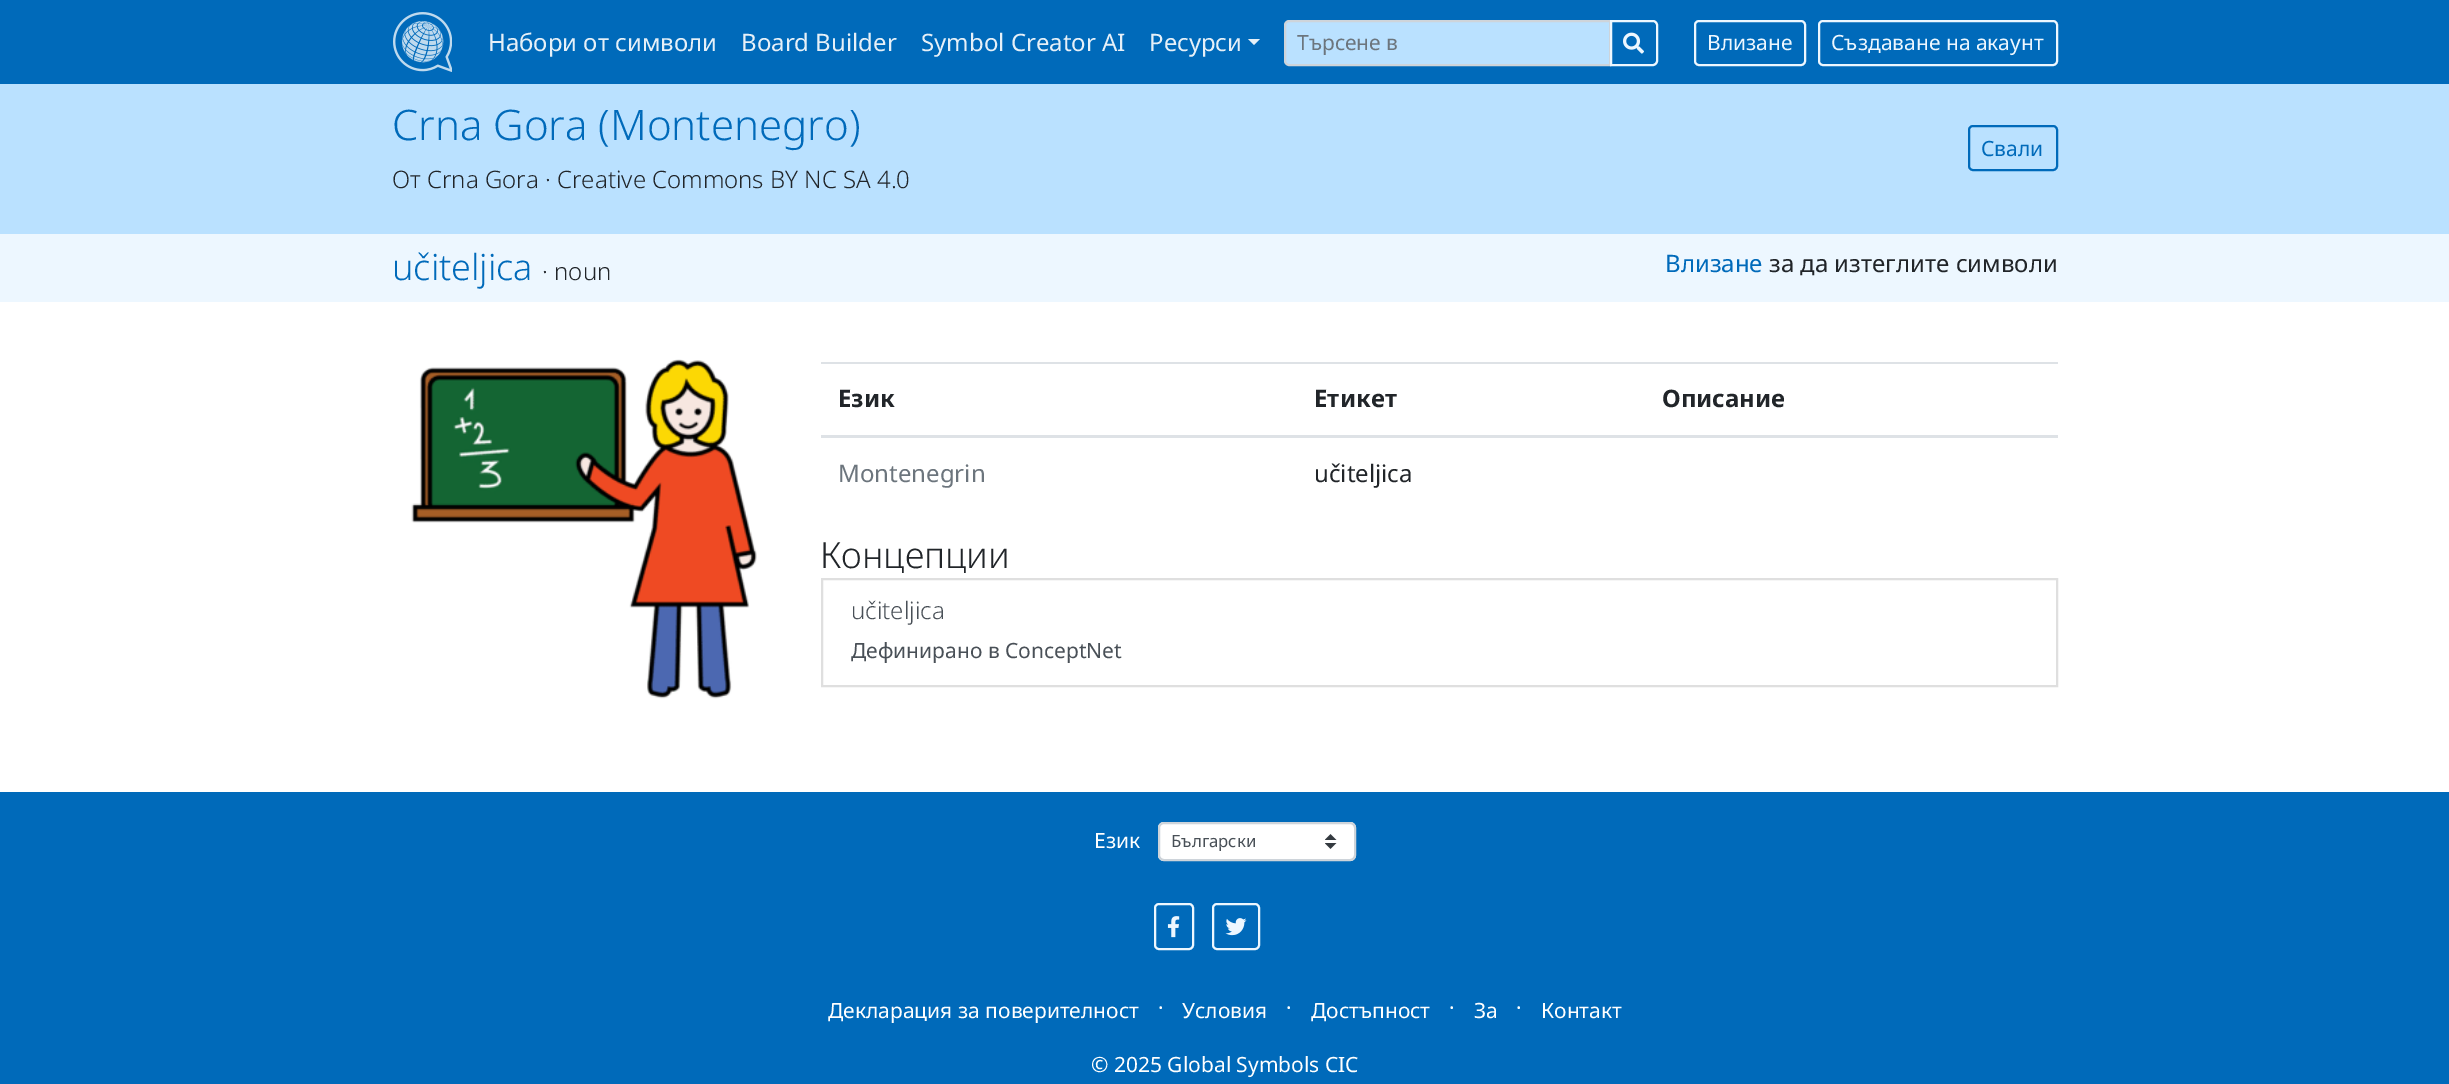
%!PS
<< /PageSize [2449 1084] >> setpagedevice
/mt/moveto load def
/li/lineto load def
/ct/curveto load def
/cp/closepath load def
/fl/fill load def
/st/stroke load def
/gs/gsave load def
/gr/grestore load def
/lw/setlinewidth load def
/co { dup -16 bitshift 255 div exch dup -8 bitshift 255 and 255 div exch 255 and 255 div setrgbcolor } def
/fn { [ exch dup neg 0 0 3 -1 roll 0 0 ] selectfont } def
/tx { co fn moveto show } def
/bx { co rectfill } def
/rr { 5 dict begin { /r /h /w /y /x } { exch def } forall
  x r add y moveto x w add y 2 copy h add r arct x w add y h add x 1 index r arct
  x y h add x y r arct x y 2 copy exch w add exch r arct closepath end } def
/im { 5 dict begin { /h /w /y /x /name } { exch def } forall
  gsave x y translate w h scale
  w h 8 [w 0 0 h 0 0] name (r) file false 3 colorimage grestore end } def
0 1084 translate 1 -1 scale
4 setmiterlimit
0 0 2449 1084 16#FFFFFF bx
0 0 2449 84 16#006ABA bx
(media/1.raw) 393 12 59 60 im
16#E6F0F8 co
1248 39 mt 1260 39 li 1254 45 li cp fl
16#BAE1FF co
1289 21 mt 1610 21 li 1610 65 li 1289 65 li 1287 65 1285 63 1285 61 ct 1285 25 li 1285 23 1287 21 1289 21 ct cp gs fl gr
16#CED4DA co
2 lw
st
16#EDF7FF co
1611 21 mt 1653 21 li 1655 21 1657 23 1657 25 ct 1657 61 li 1657 63 1655 65 1653 65 ct 1611 65 li cp st
(media/2.raw) 1623 32 21 22 im
1695 21 110 44 4 rr st
1819 21 238 44 4 rr st
0 84 2449 150 16#BAE1FF bx
16#006ABA co
1969 126 88 44 4 rr st
0 234 2449 68 16#EDF7FF bx
(media/3.raw) 411 359 346 340 im
821 362 1237 2 16#DEE2E6 bx
821 435 1237 3 16#DEE2E6 bx
16#DFDFDF co
822 579 1235 107 rectstroke
0 792 2449 292 16#006ABA bx
16#FFFFFF co
1158 822 198 39 6 rr fl
(media/4.raw) 1325 834 12 15 im
16#CED4DA co
1159 823 196 37 5 rr st
16#EDF7FF co
1155 904 38 45 4 rr st
(media/5.raw) 1167 916 13 22 im
1213 904 46 45 4 rr st
(media/6.raw) 1225 918 22 18 im
(Набори от символи) 488 51 /NotoSans-Regular 24 16#E6F0F8 tx
(Board Builder) 741 51 /NotoSans-Regular 24 16#E6F0F8 tx
(Symbol Creator AI) 921 51 /NotoSans-Regular 24 16#E6F0F8 tx
(Ресурси) 1149 51 /NotoSans-Regular 24 16#E6F0F8 tx
(Търсене в) 1297 50 /NotoSans-Regular 21 16#6C757D tx
(Влизане) 1707 50 /NotoSans-Regular 21 16#EDF7FF tx
(Създаване на акаунт) 1831 50 /NotoSans-Regular 21 16#EDF7FF tx
(Crna Gora \(Montenegro\)) 392 140 /NotoSans-Light 42 16#006ABA tx
(От Crna Gora · Creative Commons BY NC SA 4.0) 392 188 /NotoSans-Light 24 16#212529 tx
(Свали) 1981 156 /NotoSans-Regular 21 16#006ABA tx
(učiteljica) 392 280 /NotoSans-Light 36 16#006ABA tx
(· noun) 542 280 /NotoSans-Light 24 16#212529 tx
(Влизане) 1665 272 /NotoSans-Regular 24 16#006ABA tx
(за да изтеглите символи) 1769 272 /NotoSans-Regular 24 16#212529 tx
(Език) 838 407 /NotoSans-Bold 24 16#212529 tx
(Етикет) 1314 407 /NotoSans-Bold 24 16#212529 tx
(Описание) 1662 407 /NotoSans-Bold 24 16#212529 tx
(Montenegrin) 838 482 /NotoSans-Regular 24 16#6C757D tx
(učiteljica) 1314 482 /NotoSans-Regular 24 16#212529 tx
(Концепции) 820 568 /NotoSans-Light 36 16#212529 tx
(učiteljica) 851 619 /NotoSans-Light 24 16#495057 tx
(Дефинирано в ConceptNet) 851 658 /NotoSans-Regular 21 16#495057 tx
(Език) 1094 848 /NotoSans-Regular 21 16#FFFFFF tx
(Български) 1171 847 /NotoSans-Regular 16.75 16#495057 tx
(Декларация за поверителност) 828 1018 /NotoSans-Regular 21 16#FFFFFF tx
(·) 1158 1015 /NotoSans-Regular 21 16#FFFFFF tx
(Условия) 1182 1018 /NotoSans-Regular 21 16#FFFFFF tx
(·) 1286 1015 /NotoSans-Regular 21 16#FFFFFF tx
(Достъпност) 1311 1018 /NotoSans-Regular 21 16#FFFFFF tx
(·) 1449 1015 /NotoSans-Regular 21 16#FFFFFF tx
(За) 1474 1018 /NotoSans-Regular 21 16#FFFFFF tx
(·) 1516 1015 /NotoSans-Regular 21 16#FFFFFF tx
(Контакт) 1541 1018 /NotoSans-Regular 21 16#FFFFFF tx
(© 2025 Global Symbols CIC) 1091 1072 /NotoSans-Regular 21 16#FFFFFF tx
showpage
